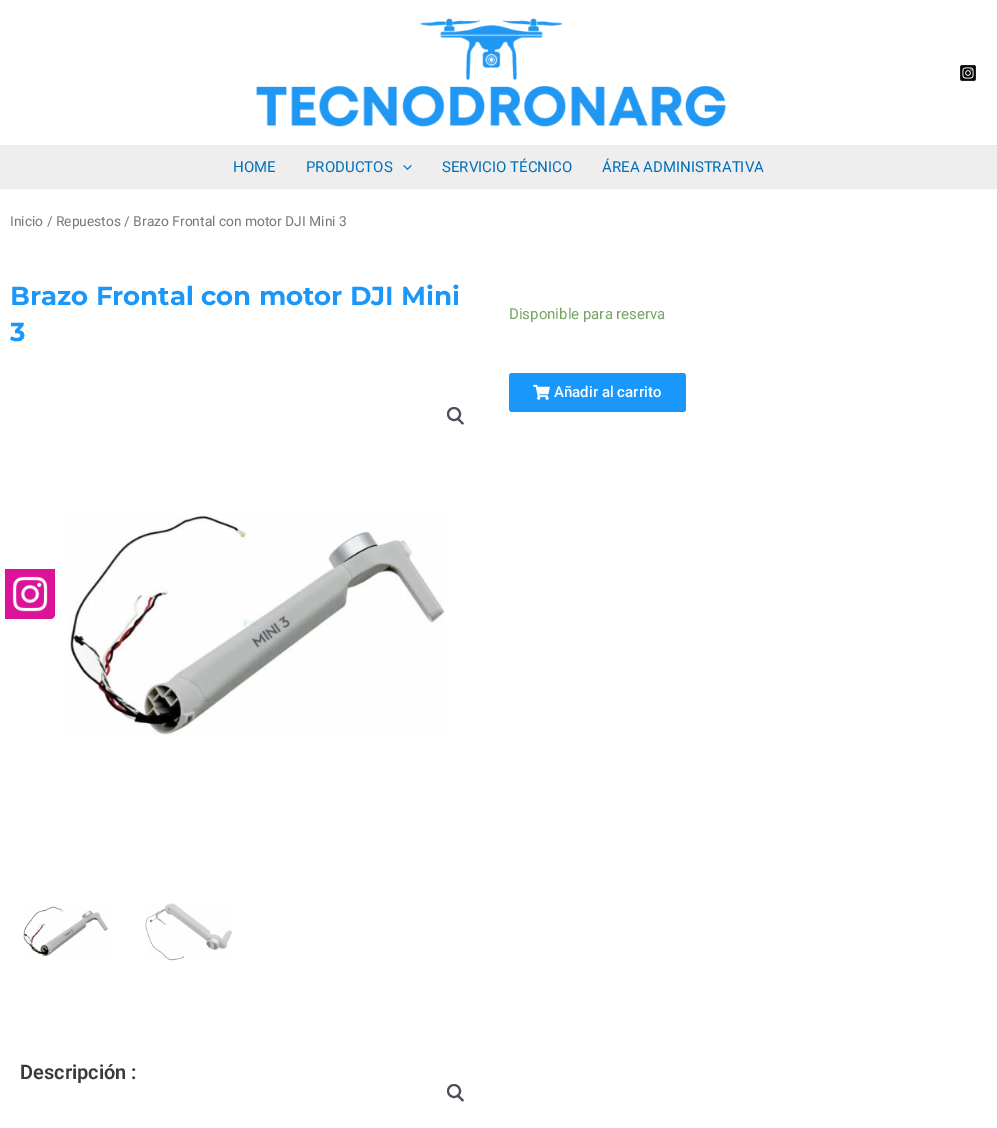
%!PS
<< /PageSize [997 1128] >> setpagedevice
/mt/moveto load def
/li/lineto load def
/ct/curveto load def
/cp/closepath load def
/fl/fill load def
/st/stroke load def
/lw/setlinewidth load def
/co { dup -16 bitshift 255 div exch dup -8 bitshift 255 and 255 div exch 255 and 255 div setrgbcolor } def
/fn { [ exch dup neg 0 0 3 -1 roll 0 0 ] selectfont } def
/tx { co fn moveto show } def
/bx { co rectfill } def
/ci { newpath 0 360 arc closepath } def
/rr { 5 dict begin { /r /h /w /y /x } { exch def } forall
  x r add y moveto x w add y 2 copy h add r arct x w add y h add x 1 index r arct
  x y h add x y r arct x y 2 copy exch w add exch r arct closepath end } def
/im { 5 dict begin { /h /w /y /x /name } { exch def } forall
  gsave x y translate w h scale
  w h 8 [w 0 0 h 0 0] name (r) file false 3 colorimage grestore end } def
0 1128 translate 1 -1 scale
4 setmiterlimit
0 0 997 1128 16#FFFFFF bx
0 145 997 1 16#EAEAEA bx
(media/1.raw) 256 18 470 109 im
(media/2.raw) 960 65 16 16 im
0 146 997 42 16#EEEEEE bx
0 188 997 1 16#EAEAEA bx
(media/3.raw) 403 165 9 5 im
16#4B4F58 co
2 lw
454 414 6 ci st
457.5 418.5 mt 459 417.5 460.5 420 461 420.5 ct 462 421.5 464.5 423 463.5 424 ct 462 425.5 460.5 422.5 460 422 ct 459 421.5 456.5 419.5 457.5 418.5 ct cp fl
(media/4.raw) 68 513 377 223 im
(media/5.raw) 23 906 85 51 im
(media/6.raw) 145 903 87 58 im
16#1997FB co
509 373 177 39 3 rr fl
(media/7.raw) 533 384 17 16 im
16#4B4F58 co
454 1091 6 ci st
457.5 1095.5 mt 459 1094 460.5 1097 461 1097.5 ct 462 1098 464.5 1100 463.5 1101 ct 462 1102.5 460.5 1099.5 460 1099 ct 459 1098.5 456.5 1096.5 457.5 1095.5 ct cp fl
16#DB1398 co
5 569 mt 55 569 li 55 614 li 55 617 53 619 50 619 ct 5 619 li cp fl
(media/8.raw) 12 576 36 36 im
(HOME) 233 172 /Roboto-Regular 15 16#0170B9 tx
(PRODUCTOS) 306 172 /Roboto-Regular 15 16#0170B9 tx
(SERVICIO TÉCNICO) 442 172 /Roboto-Regular 15 16#0170B9 tx
(ÁREA ADMINISTRATIVA) 602 172 /Roboto-Regular 15 16#0170B9 tx
(Inicio / Repuestos / Brazo Frontal con motor DJI Mini 3) 10 226 /Roboto-Regular 13.8 16#777777 tx
(Brazo Frontal con motor DJI Mini) 10 305 /Montserrat-Bold 26 16#1997FB tx
(3) 10 341 /Montserrat-Bold 26 16#1997FB tx
(Disponible para reserva) 509 319 /Roboto-Regular 15 16#77A464 tx
(Añadir al carrito) 554 397 /Roboto-Medium 15 16#FFFFFF tx
(Descripción :) 20 1079 /Roboto-SemiBold 20 16#3A3A3A tx
showpage
